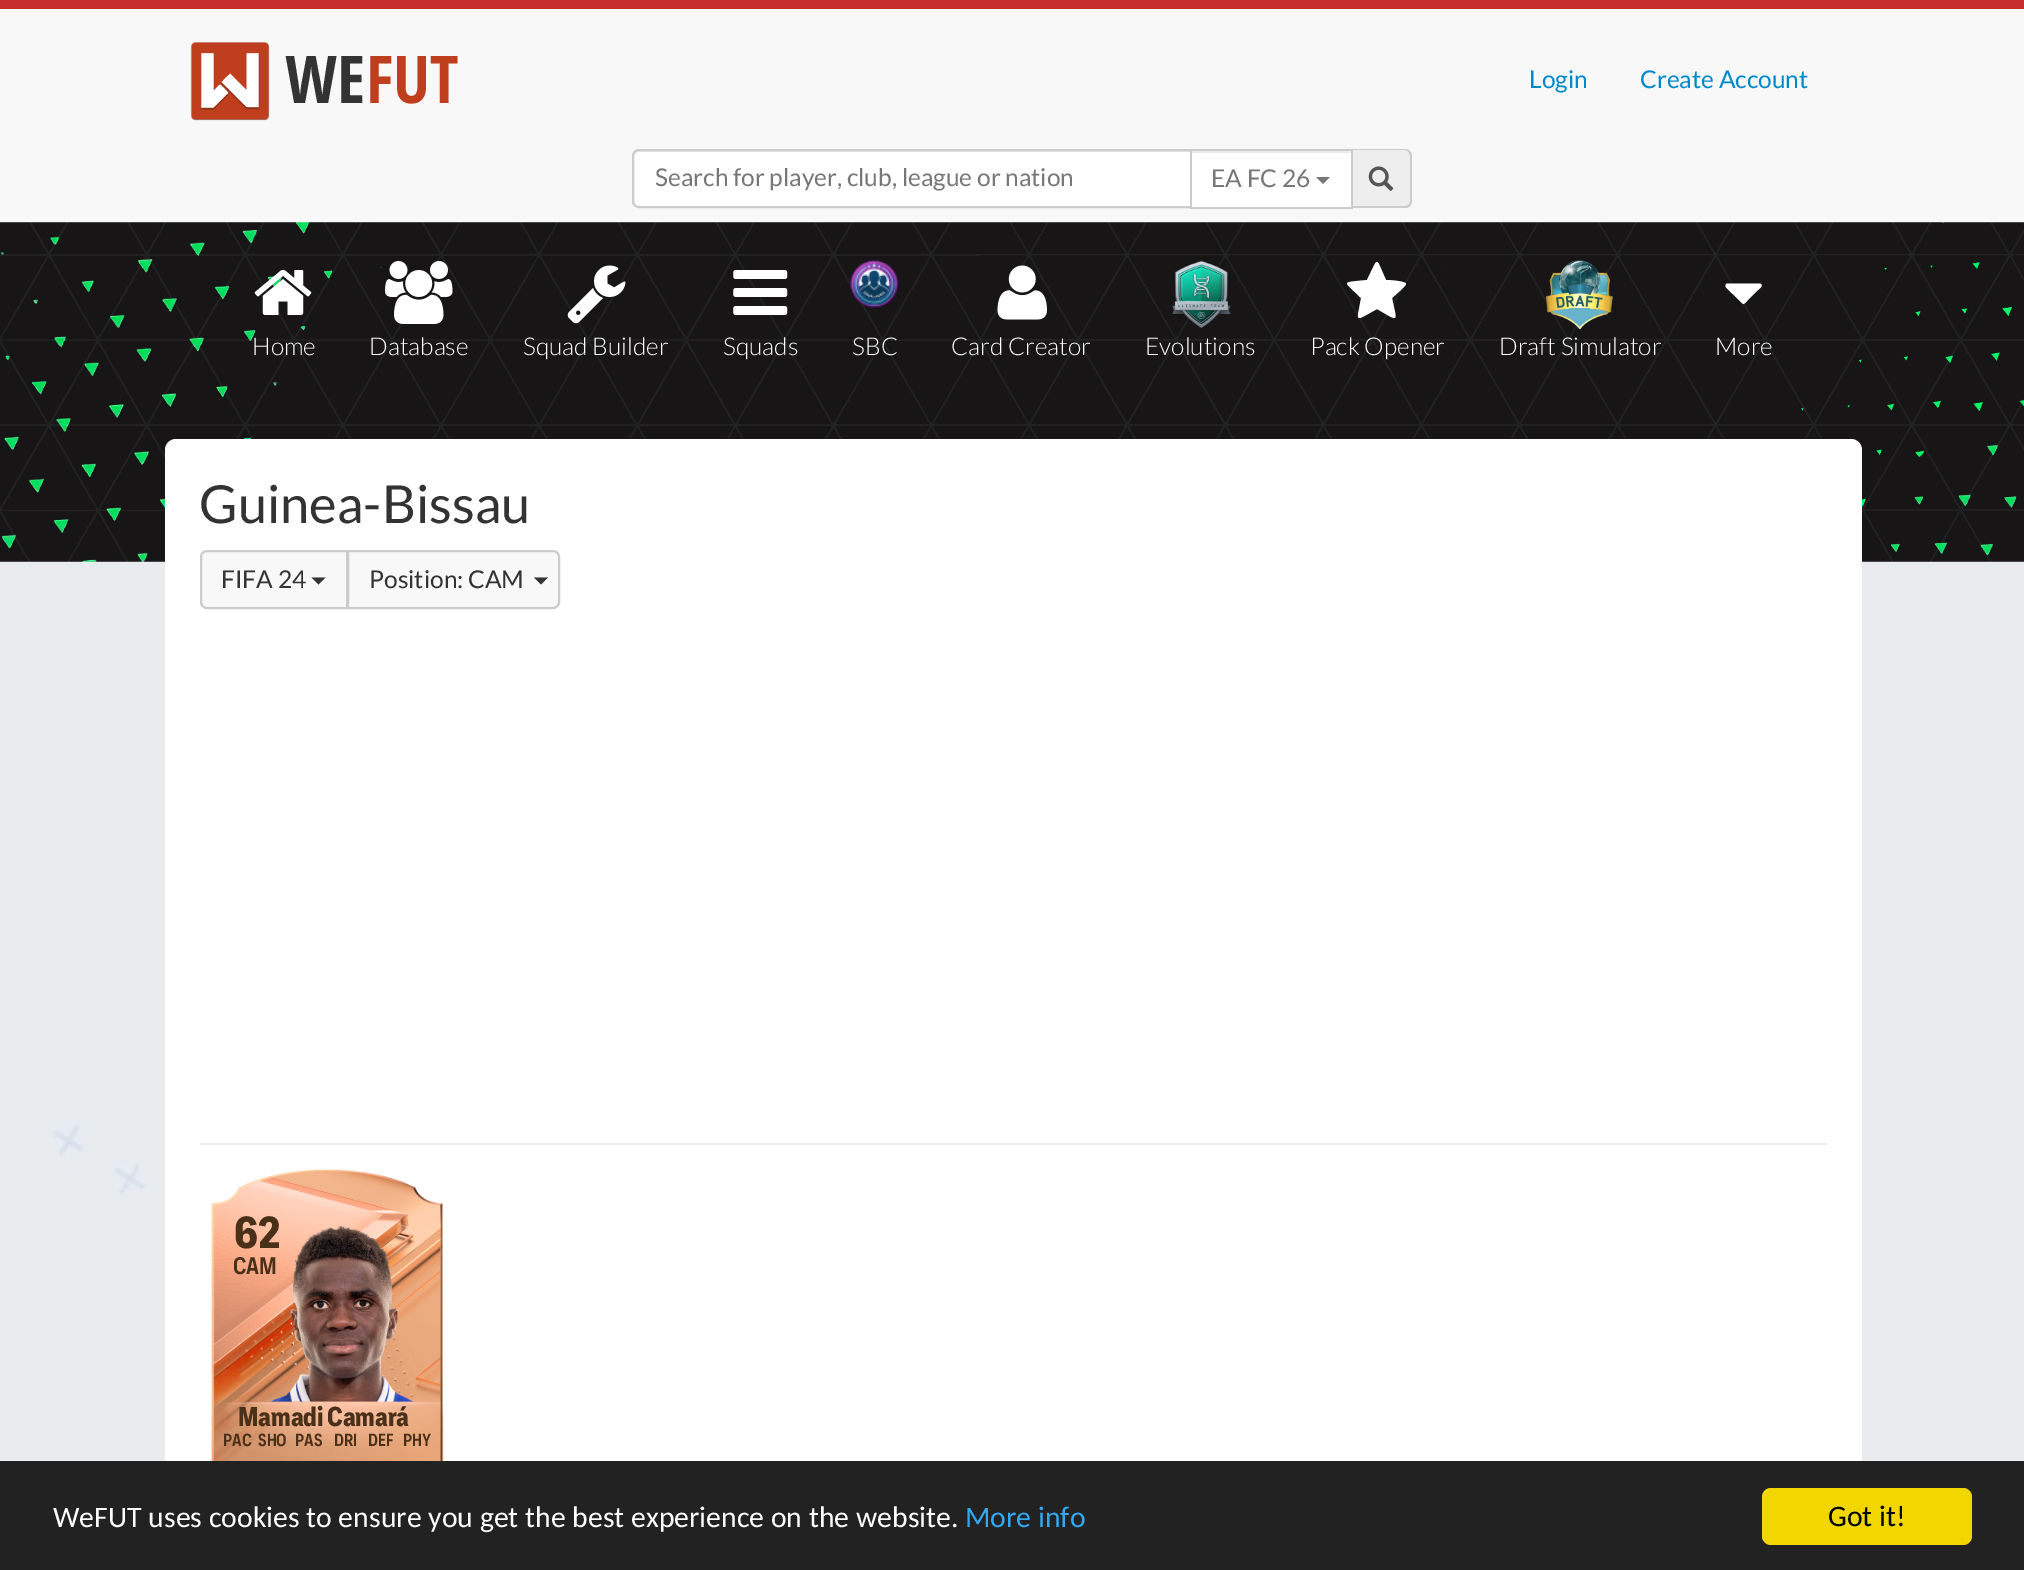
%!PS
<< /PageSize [2024 1570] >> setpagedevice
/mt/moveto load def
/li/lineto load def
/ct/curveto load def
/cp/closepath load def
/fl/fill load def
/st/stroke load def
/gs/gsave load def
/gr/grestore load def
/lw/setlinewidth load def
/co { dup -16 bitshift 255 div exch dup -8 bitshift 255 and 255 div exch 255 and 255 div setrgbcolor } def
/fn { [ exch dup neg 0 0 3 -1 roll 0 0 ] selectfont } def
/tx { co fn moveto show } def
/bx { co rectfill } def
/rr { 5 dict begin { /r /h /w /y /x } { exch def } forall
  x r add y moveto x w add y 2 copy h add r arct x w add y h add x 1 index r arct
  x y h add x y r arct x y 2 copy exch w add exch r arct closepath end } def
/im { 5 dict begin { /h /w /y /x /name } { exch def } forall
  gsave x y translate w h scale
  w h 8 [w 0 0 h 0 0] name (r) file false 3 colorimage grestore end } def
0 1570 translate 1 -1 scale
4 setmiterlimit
0 0 2024 1570 16#FFFFFF bx
(media/1.raw) 0 222 2024 1239 im
0 9 2024 213 16#F8F8F8 bx
0 0 2024 9 16#C72C2C bx
(media/2.raw) 190 42 80 79 im
1190 151 161 2 16#ECECEC bx
16#EEEEEE co
1351 149 mt 1405 149 li 1409 149 1412 152 1412 156 ct 1412 201 li 1412 205 1409 208 1405 208 ct 1351 208 li cp fl
16#CCCCCC co
1351 149 mt 1405 149 li 1409 149 1412 152 1412 156 ct 1412 201 li 1412 205 1409 208 1405 208 ct 1351 208 li cp 1351 150 mt 1405 150 li 1408 150 1410 153 1410 156 ct 1410 201 li 1410 204 1408 206 1405 206 ct 1351 206 li cp eofill
1190 149 163 2 16#CCCCCC bx
1351 149 2 59 16#CCCCCC bx
1190 207 163 2 16#CCCCCC bx
16#FFFFFF co
639 149 mt 1192 149 li 1192 208 li 639 208 li 635 208 632 205 632 201 ct 632 156 li 632 152 635 149 639 149 ct cp fl
16#ECECEC co
639 152 mt 1190 152 li 1190 151 li 639 151 li 635 151 634 155 634 158 ct 634 155 636 152 639 152 ct cp fl
16#CCCCCC co
2 lw
639 150 mt 1191 150 li 1191 207 li 639 207 li 635.5 207 633 204.5 633 201 ct 633 156 li 633 152.5 635.5 150 639 150 ct cp st
1192 153 159 54 16#FFFFFF bx
16#777777 co
1316 177 mt 1330 177 li 1323 184 li cp fl
(media/3.raw) 1368 166 26 25 im
(media/4.raw) 0 222 2024 340 im
(media/5.raw) 254 269 58 46 im
(media/6.raw) 385 261 68 63 im
(media/7.raw) 567 265 59 59 im
(media/8.raw) 733 270 55 45 im
(media/9.raw) 850 260 48 48 im
(media/10.raw) 997 265 50 55 im
(media/11.raw) 1172 260 59 69 im
16#FFFFFF co
1406 284 mt 1406 286 1394 296 1392 298 ct 1397 323 1400 322 1377 309 ct 1353 322 1357 323 1361 298 ct 1343 280 1340 283 1367 280 ct 1379 256 1375 256 1386 280 ct 1389 280 1406 281 1406 284 ct cp fl
(media/12.raw) 1546 260 67 69 im
1761 284 mt 1763 286.5 1759.5 288.5 1758 290 ct 1747.5 300.5 li 1743.5 305 1743.5 305 1739.5 300.5 ct 1726 287.5 li 1725 286 1725.5 283.5 1727.5 283.5 ct 1759.5 283.5 li cp fl
165 439 1697 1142 11 rr fl
200 1143 1627 2 16#EEEEEE bx
16#F8F8F8 co
207 551 mt 347 551 li 347 608 li 207 608 li 203.5 608 201 605.5 201 602 ct 201 557 li 201 553.5 203.5 551 207 551 ct cp gs fl gr
16#CCCCCC co
st
16#333333 co
311.5 577.5 mt 325.5 577.5 li 318.5 584.5 li cp fl
16#F8F8F8 co
348 551 mt 553 551 li 556.5 551 559 553.5 559 557 ct 559 602 li 559 605.5 556.5 608 553 608 ct 348 608 li cp gs fl gr
16#CCCCCC co
st
16#333333 co
534 577.5 mt 548 577.5 li 541 584.5 li cp fl
(media/13.raw) 211 1169 233 292 im
(media/14.raw) 270 1225 144 177 im
0 1461 2024 109 16#222222 bx
16#F1D600 co
1762 1488 210 57 9 rr fl
(WE) 285 103 /OpenSansCondensed-Bold 66 16#333333 tx
(FUT) 366 103 /OpenSansCondensed-Bold 66 16#BE3E1D tx
(Login) 1529 88 /Lato-Regular 24.5 16#0088CC tx
(Create Account) 1640 88 /Lato-Regular 24.5 16#0088CC tx
(Search for player, club, league or nation) 655 186 /Lato-Regular 24.5 16#777777 tx
(EA FC 26) 1211 187 /Lato-Regular 24.5 16#777777 tx
(Home) 252 355 /Lato-Light 24.5 16#FFFFFF tx
(Database) 369 355 /Lato-Light 24.5 16#FFFFFF tx
(Squad Builder) 523 355 /Lato-Light 24.5 16#FFFFFF tx
(Squads) 723 355 /Lato-Light 24.5 16#FFFFFF tx
(SBC) 852 355 /Lato-Light 24.5 16#FFFFFF tx
(Card Creator) 951 355 /Lato-Light 24.5 16#FFFFFF tx
(Evolutions) 1145 355 /Lato-Light 24.5 16#FFFFFF tx
(Pack Opener) 1310 355 /Lato-Light 24.5 16#FFFFFF tx
(Draft Simulator) 1499 355 /Lato-Light 24.5 16#FFFFFF tx
(More) 1715 355 /Lato-Light 24.5 16#FFFFFF tx
(Guinea-Bissau) 199 523 /Lato-Regular 52.5 16#333333 tx
(FIFA 24) 221 588 /Lato-Regular 24.5 16#333333 tx
(Position: CAM) 369 588 /Lato-Regular 24.5 16#333333 tx
(62) 234 1248 /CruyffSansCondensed-Bold 46 16#4A3019 tx
(CAM) 233 1274 /CruyffSansCondensed-Medium 24.5 16#4A3019 tx
(Mamadi Camará) 238 1426 /CruyffSansCondensed-Bold 28 16#4A3019 tx
(PAC) 223 1446 /CruyffSansCondensed-Medium 18 16#4A3019 tx
(SHO) 258 1446 /CruyffSansCondensed-Medium 18 16#4A3019 tx
(PAS) 295 1446 /CruyffSansCondensed-Medium 18 16#4A3019 tx
(DRI) 334 1446 /CruyffSansCondensed-Medium 18 16#4A3019 tx
(DEF) 368 1446 /CruyffSansCondensed-Medium 18 16#4A3019 tx
(PHY) 403 1446 /CruyffSansCondensed-Medium 18 16#4A3019 tx
(WeFUT uses cookies to ensure you get the best experience on the website.) 53 1527 /Carlito-Regular 29.75 16#FFFFFF tx
(More info) 965 1527 /Carlito-Regular 29.75 16#31A8F0 tx
(Got it!) 1828 1526 /Carlito-Regular 29.75 16#000000 tx
showpage
